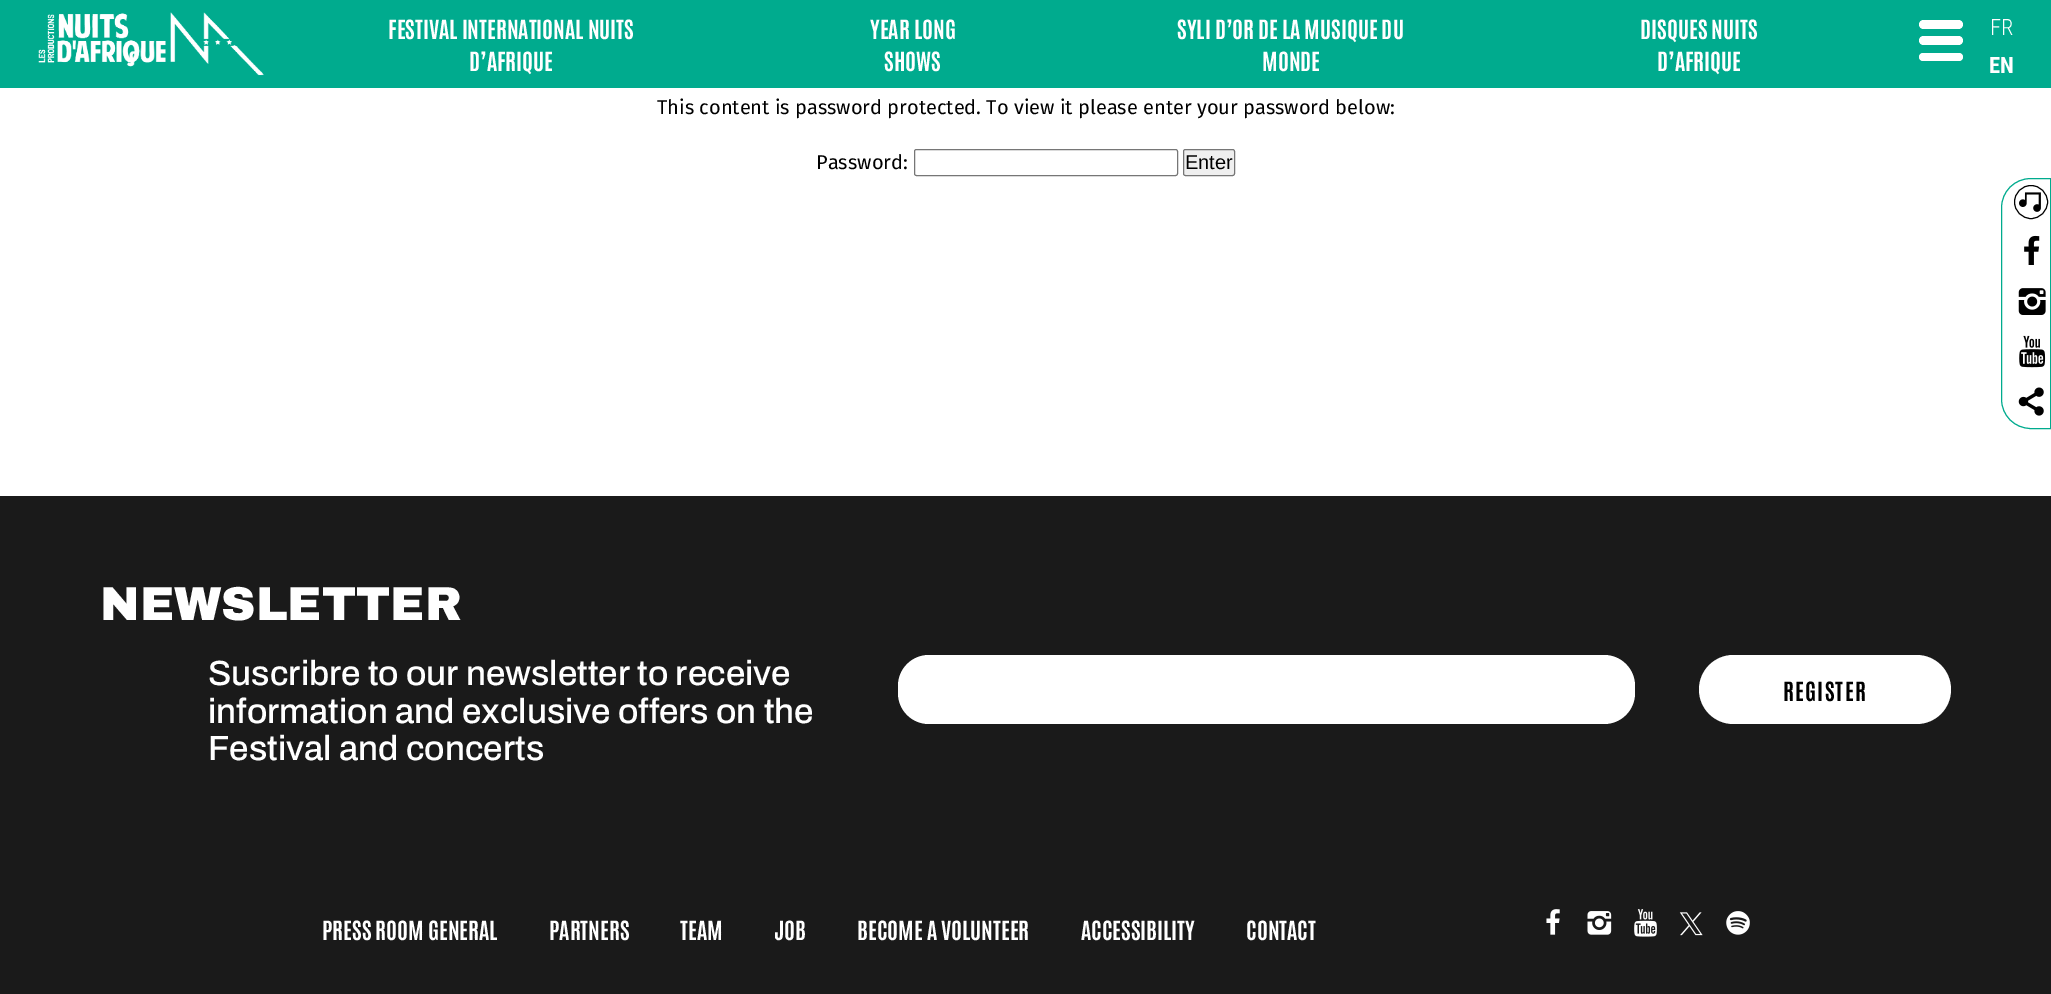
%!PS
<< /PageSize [2051 994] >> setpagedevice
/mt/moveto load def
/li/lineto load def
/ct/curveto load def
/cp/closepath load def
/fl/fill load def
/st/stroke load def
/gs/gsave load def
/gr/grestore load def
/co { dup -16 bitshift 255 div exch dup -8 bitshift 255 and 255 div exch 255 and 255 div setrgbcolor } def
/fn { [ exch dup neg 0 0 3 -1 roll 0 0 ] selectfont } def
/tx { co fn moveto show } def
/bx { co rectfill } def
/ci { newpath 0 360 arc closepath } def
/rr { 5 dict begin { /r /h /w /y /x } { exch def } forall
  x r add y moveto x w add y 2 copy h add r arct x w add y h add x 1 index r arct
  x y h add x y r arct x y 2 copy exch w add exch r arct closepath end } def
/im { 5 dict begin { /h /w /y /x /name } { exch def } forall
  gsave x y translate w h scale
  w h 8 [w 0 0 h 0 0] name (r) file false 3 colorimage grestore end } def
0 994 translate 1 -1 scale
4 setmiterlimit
0 0 2051 994 16#FFFFFF bx
0 0 2051 88 16#00AB8E bx
(media/1.raw) 38 12 226 64 im
16#FFFFFF co
1919 20 44 9 4.5 rr fl
1919 36 44 9 4.5 rr fl
1919 53 44 8 4 rr fl
16#00AB8E co
2031 178.5 mt 2050.5 178.5 li 2050.5 428.5 li 2031 428.5 li 2014.5 428.5 2001.5 415.5 2001.5 399 ct 2001.5 208 li 2001.5 191.5 2014.5 178.5 2031 178.5 ct cp st
16#000000 co
2031 202 16.5 ci st
(media/2.raw) 2019 192 22 20 im
(media/3.raw) 2024 235 16 30 im
(media/4.raw) 2018 288 28 27 im
(media/5.raw) 2019 335 27 33 im
(media/6.raw) 2018 387 26 29 im
16#767676 co
914.5 149.5 263 26 2 rr st
16#EFEFEF co
1183.5 149.5 51 26 2 rr gs fl gr
16#767676 co
st
0 496 2051 498 16#1A1A1A bx
16#FFFFFF co
898 655 737 69 31 rr fl
1699 655 252 69 34.5 rr fl
(media/7.raw) 1546 909 14 26 im
(media/8.raw) 1587 911 25 24 im
(media/9.raw) 1634 909 23 28 im
(media/10.raw) 1679 912 24 24 im
(media/11.raw) 1726 911 24 24 im
(FESTIVAL INTERNATIONAL NUITS) 388 39 /Antonio-Bold 22.5 16#FFFFFF tx
(D’AFRIQUE) 469 71 /Antonio-Bold 22.5 16#FFFFFF tx
(YEAR LONG) 870 39 /Antonio-Bold 22.5 16#FFFFFF tx
(SHOWS) 884 71 /Antonio-Bold 22.5 16#FFFFFF tx
(SYLI D’OR DE LA MUSIQUE DU) 1177 39 /Antonio-Bold 22.5 16#FFFFFF tx
(MONDE) 1262 71 /Antonio-Bold 22.5 16#FFFFFF tx
(DISQUES NUITS) 1640 39 /Antonio-Bold 22.5 16#FFFFFF tx
(D’AFRIQUE) 1657 71 /Antonio-Bold 22.5 16#FFFFFF tx
(FR) 1990 35 /RobotoCondensed-Light 22.5 16#FFFFFF tx
(EN) 1989 73 /RobotoCondensed-Bold 22.5 16#FFFFFF tx
(This content is password protected. To view it please enter your password below:) 657 114 /FiraSans-Regular 20 16#000000 tx
(Password:) 816 169 /FiraSans-Regular 20 16#000000 tx
(Enter) 1185 169 /LiberationSans-Regular 20 16#000000 tx
(NEWSLETTER) 100 620 /ArchivoBlack-Black 47.5 16#FFFFFF tx
(Suscribre to our newsletter to receive) 208 685 /Archivo-Medium 35 16#FFFFFF tx
(information and exclusive offers on the) 208 723 /Archivo-Medium 35 16#FFFFFF tx
(Festival and concerts) 208 760 /Archivo-Medium 35 16#FFFFFF tx
/Antonio-Bold 22.5 fn
16#000000 co
1783 701 mt 1.25 0 (REGISTER) ashow
(PRESS ROOM GENERAL) 322 940 /Antonio-Bold 22.5 16#FFFFFF tx
(PARTNERS) 549 940 /Antonio-Bold 22.5 16#FFFFFF tx
(TEAM) 680 940 /Antonio-Bold 22.5 16#FFFFFF tx
(JOB) 774 940 /Antonio-Bold 22.5 16#FFFFFF tx
(BECOME A VOLUNTEER) 857 940 /Antonio-Bold 22.5 16#FFFFFF tx
(ACCESSIBILITY) 1081 940 /Antonio-Bold 22.5 16#FFFFFF tx
(CONTACT) 1246 940 /Antonio-Bold 22.5 16#FFFFFF tx
showpage
